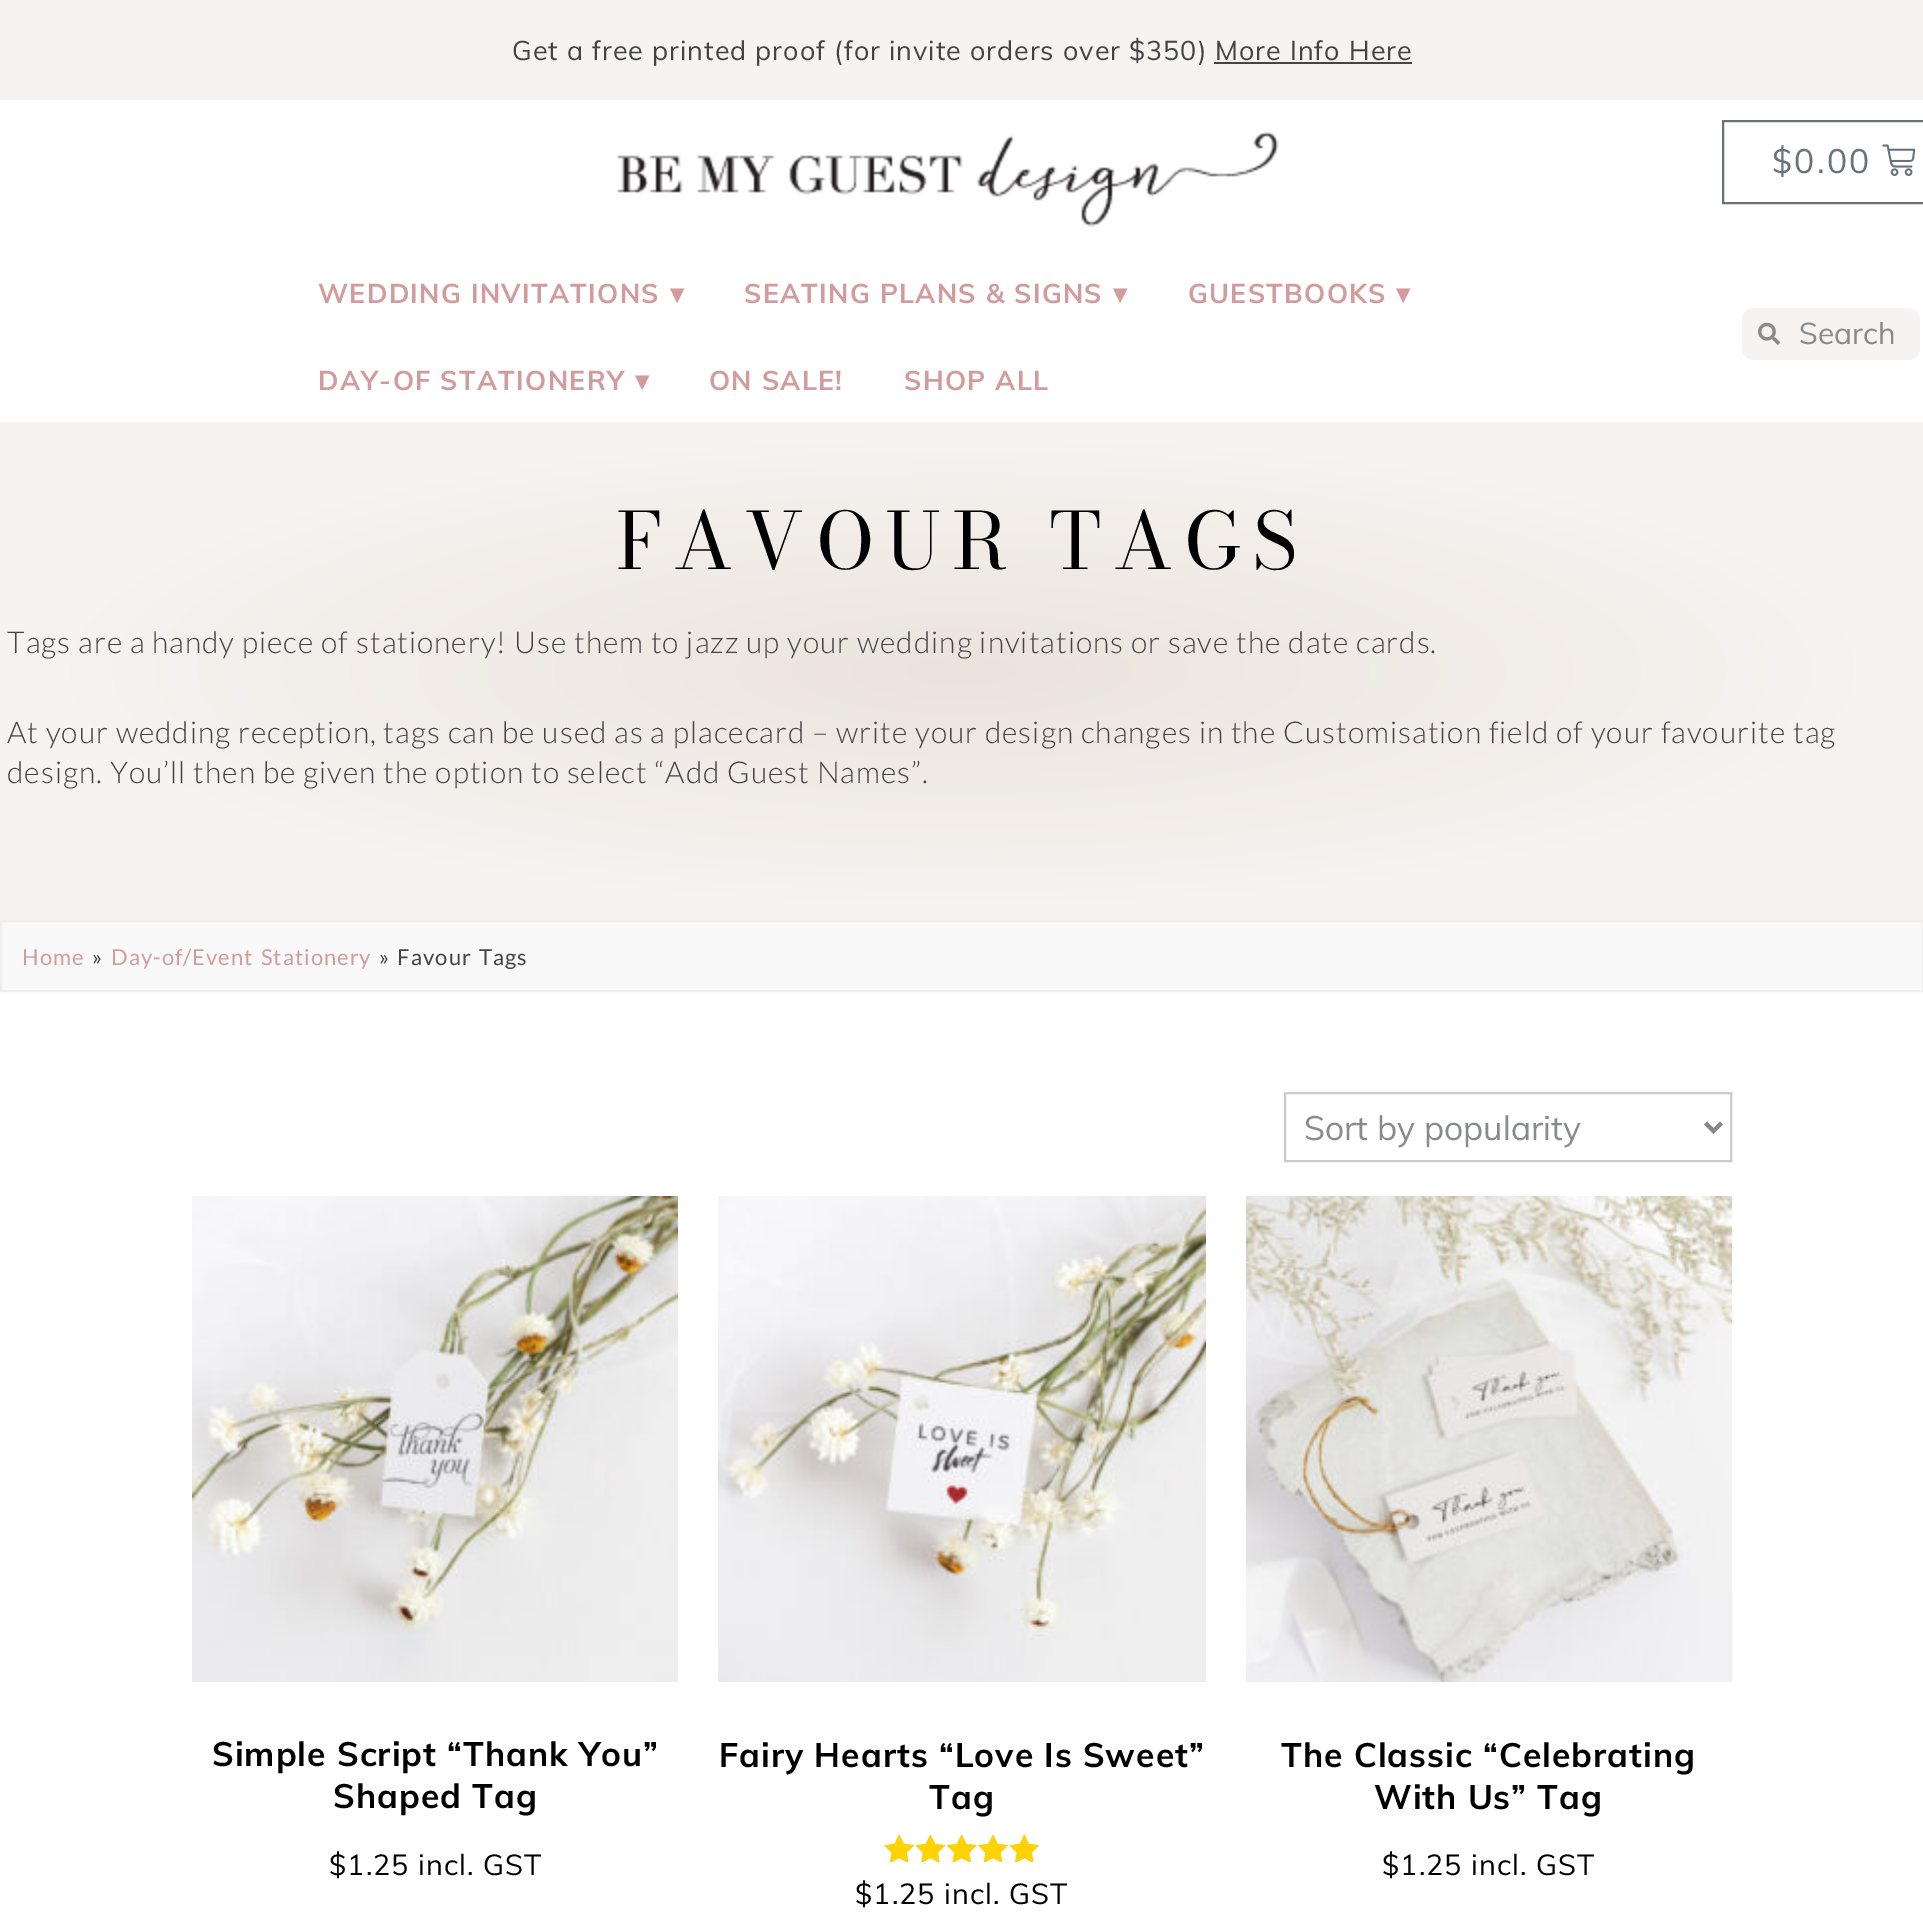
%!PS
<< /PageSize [1923 1919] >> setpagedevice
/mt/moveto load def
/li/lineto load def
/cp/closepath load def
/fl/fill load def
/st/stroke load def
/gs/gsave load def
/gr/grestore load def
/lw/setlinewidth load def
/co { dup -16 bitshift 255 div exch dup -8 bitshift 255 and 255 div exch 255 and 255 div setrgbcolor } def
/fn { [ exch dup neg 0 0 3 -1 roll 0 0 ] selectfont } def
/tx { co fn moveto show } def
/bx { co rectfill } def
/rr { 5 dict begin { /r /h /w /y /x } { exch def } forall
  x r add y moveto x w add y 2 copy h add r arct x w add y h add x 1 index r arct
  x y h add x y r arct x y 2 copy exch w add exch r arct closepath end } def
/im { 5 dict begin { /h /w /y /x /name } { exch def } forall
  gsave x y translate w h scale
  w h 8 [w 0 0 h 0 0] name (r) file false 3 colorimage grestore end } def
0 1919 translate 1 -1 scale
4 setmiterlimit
0 0 1923 1919 16#FFFFFF bx
0 0 1923 100 16#F6F3F0 bx
1214 62 198 2 16#444444 bx
(media/1.raw) 617 131 662 96 im
16#69727D co
2 lw
1723 121 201 82 rectstroke
(media/2.raw) 1882 144 34 32 im
16#F6F3F0 co
1742 308 178 52 12 rr fl
(media/3.raw) 1758 322 22 23 im
gs 0 422 mt 1923 422 li 1923 920 li 0 920 li cp clip newpath 962 671 translate 1360 352 scale
<< /ShadingType 3 /ColorSpace /DeviceRGB /Coords [0 0 0 0 0 1] /Extend [true true] /Function << /FunctionType 3 /Domain [0 1] /Functions [<< /FunctionType 2 /Domain [0 1] /C0 [.922 .894 .867] /C1 [.965 .953 .941] /N 1 >> << /FunctionType 2 /Domain [0 1] /C0 [.965 .953 .941] /C1 [.965 .953 .941] /N 1 >>] /Bounds [.67] /Encode [0 1 0 1] >> >> shfill gr
16#F9F9F9 co
1 921 mt 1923 921 li 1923 991 li 1 991 li cp gs fl gr
16#EEEEEE co
st
16#CCCCCC co
1285 1093 446 68 rectstroke
16#888888 co
4 lw
1705.5 1123 mt 1713.5 1131 li 1721.5 1123 li st
(media/4.raw) 192 1196 486 486 im
(media/5.raw) 718 1196 488 486 im
(media/6.raw) 884 1834 156 28 im
(media/7.raw) 884 1834 156 28 im
(media/8.raw) 1246 1196 486 486 im
/Muli-Regular 26.9 fn
16#444444 co
512 60 mt 1.01 0 (Get a free printed proof \(for invite orders over $350\) More Info Here) ashow
/Muli-Regular 33.6 fn
16#69727D co
1772 173 mt 2.25 0 ($0.00) ashow
/Muli-Bold 26.9 fn
16#D29C9D co
318 303 mt 1.3 0 (WEDDING INVITATIONS) ashow
/DejaVuSans-Bold 26.9 fn
670 303 mt 1.3 0 (▾) ashow
/Muli-Bold 26.9 fn
744 303 mt 1.3 0 (SEATING PLANS & SIGNS) ashow
/DejaVuSans-Bold 26.9 fn
1113 303 mt 1.3 0 (▾) ashow
/Muli-Bold 26.9 fn
1188 303 mt 1.3 0 (GUESTBOOKS) ashow
/DejaVuSans-Bold 26.9 fn
1396 303 mt 1.3 0 (▾) ashow
/Muli-Bold 26.9 fn
318 390 mt 1.3 0 (DAY-OF STATIONERY) ashow
/DejaVuSans-Bold 26.9 fn
635 390 mt 1.3 0 (▾) ashow
/Muli-Bold 26.9 fn
709 390 mt 1.3 0 (ON SALE!) ashow
904 390 mt 1.3 0 (SHOP ALL) ashow
(Search) 1799 344 /Muli-Regular 30 16#888A8D tx
/BodoniModa-Regular 78 fn
16#000000 co
616 569 mt 10.75 0 (FAVOUR TAGS) ashow
/Lato-Light 30 fn
16#444444 co
7 653 mt 1.01 0 (Tags are a handy piece of stationery! Use them to jazz up your wedding invitations or save the date cards.) ashow
7 743 mt 1.01 0 (At your wedding reception, tags can be used as a placecard – write your design changes in the Customisation field of your favourite tag) ashow
7 783 mt 1.01 0 (design. You’ll then be given the option to select “Add Guest Names”.) ashow
/Lato-Regular 22 fn
16#D29C9D co
22 965 mt 1 0 (Home) ashow
16#444444 co
92 965 mt 1 0 (») ashow
16#D29C9D co
111 965 mt 2 0 32 1 0 (Day-of/Event Stationery) awidthshow
16#444444 co
379 965 mt 2 0 32 1 0 (» Favour Tags) awidthshow
(Sort by popularity) 1304 1140 /Muli-Regular 33.6 16#888A8D tx
/Muli-Bold 33.6 fn
16#000000 co
212 1766 mt 1.01 0 (Simple Script “Thank You”) ashow
333 1808 mt 1.01 0 (Shaped Tag) ashow
/Muli-Regular 28.75 fn
329 1875 mt 1.01 0 ($1.25 incl. GST) ashow
/Muli-Bold 33.6 fn
719 1767 mt 1.01 0 (Fairy Hearts “Love Is Sweet”) ashow
929 1809 mt 1.01 0 (Tag) ashow
/Muli-Regular 28.75 fn
855 1904 mt 1.01 0 ($1.25 incl. GST) ashow
/Muli-Bold 33.6 fn
1281 1767 mt 1.01 0 (The Classic “Celebrating) ashow
1374 1809 mt 1.01 0 (With Us” Tag) ashow
/Muli-Regular 28.75 fn
1382 1875 mt 1.01 0 ($1.25 incl. GST) ashow
showpage
